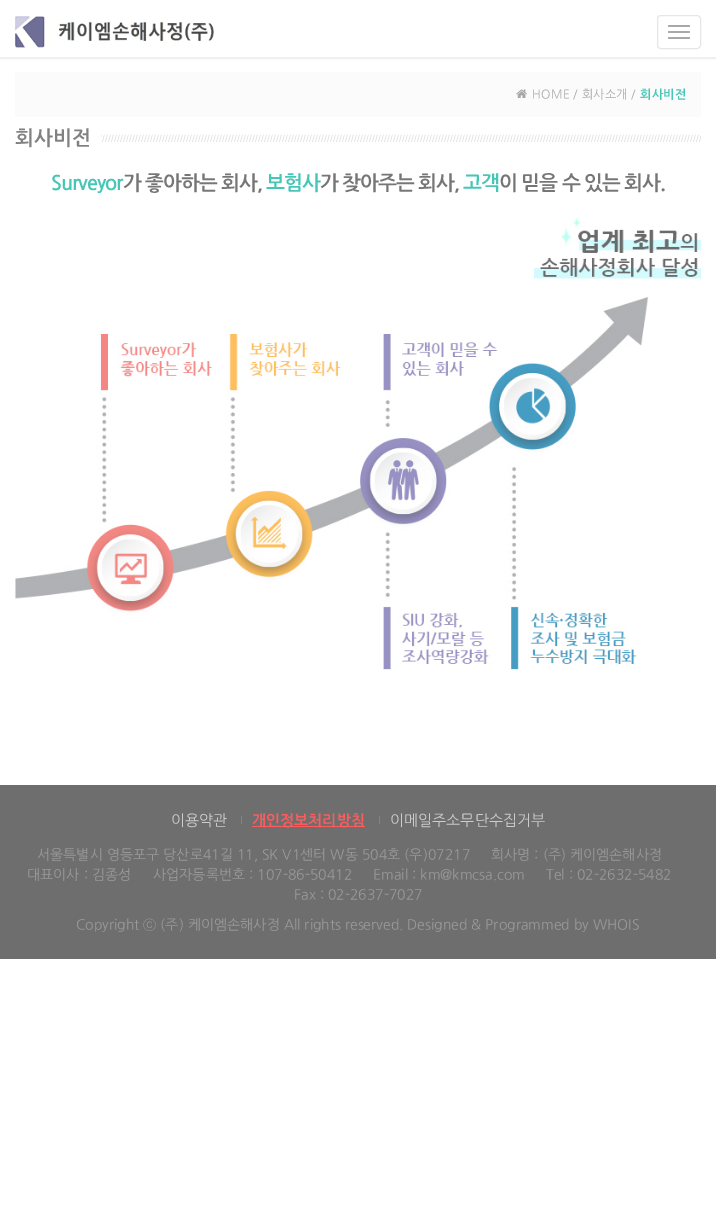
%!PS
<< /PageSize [716 1220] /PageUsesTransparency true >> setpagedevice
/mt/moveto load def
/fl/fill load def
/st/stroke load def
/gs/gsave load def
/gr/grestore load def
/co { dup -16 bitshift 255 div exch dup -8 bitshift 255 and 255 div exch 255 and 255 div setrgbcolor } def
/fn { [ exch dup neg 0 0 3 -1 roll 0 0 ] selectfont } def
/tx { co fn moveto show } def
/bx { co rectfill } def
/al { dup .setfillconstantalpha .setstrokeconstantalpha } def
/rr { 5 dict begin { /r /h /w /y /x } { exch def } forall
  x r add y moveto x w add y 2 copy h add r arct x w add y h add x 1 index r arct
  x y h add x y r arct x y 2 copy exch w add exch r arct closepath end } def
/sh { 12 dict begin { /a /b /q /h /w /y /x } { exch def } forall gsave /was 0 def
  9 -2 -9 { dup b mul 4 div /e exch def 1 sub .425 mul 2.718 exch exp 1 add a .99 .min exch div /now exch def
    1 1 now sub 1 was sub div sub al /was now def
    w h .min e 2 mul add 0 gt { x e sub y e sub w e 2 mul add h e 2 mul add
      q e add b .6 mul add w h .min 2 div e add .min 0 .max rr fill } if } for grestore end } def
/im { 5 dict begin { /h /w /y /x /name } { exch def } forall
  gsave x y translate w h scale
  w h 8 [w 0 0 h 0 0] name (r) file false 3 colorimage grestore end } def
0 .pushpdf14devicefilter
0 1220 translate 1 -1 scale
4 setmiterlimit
0 0 716 1220 16#FFFFFF bx
gs
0 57 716 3 rectclip
16#454545 co
0 2 716 57 0 1 .1 sh
gr
(media/1.raw) 15 16 200 32 im
16#E6E6E6 co
657.5 15.5 43 33 3.5 rr st
16#A8A8A8 co
668 25 22 2 1 rr fl
668 31 22 2 1 rr fl
668 37 22 2 1 rr fl
15 72 686 45 16#FBFBFB bx
(media/2.raw) 516 89 11 9 im
(media/3.raw) 101 134 600 8 im
(media/4.raw) 15 217 686 453 im
0 785 716 174 16#6E6E6E bx
241 816 1 8 16#838383 bx
252 826 113 1 16#FE5C5C bx
379 816 1 8 16#838383 bx
/NanumGothic-Regular 12 fn
16#A8A8A8 co
532 98 mt .25 0 (HOME / 회사소개 /) ashow
/NanumGothic-Bold 12 fn
16#45C6B7 co
640 98 mt .25 0 (회사비전) ashow
/NanumGothic-Bold 20 fn
16#818181 co
15 144 mt .25 0 (회사비전) ashow
16#45C6B7 co
51 189 mt -1 0 (Surveyor) ashow
16#767676 co
123 189 mt -1 0 (가 좋아하는 회사,) ashow
16#45C6B7 co
266 189 mt -1 0 (보험사) ashow
16#767676 co
320 189 mt -1 0 (가 찾아주는 회사,) ashow
16#45C6B7 co
463 189 mt -1 0 (고객) ashow
16#767676 co
499 189 mt -1 0 (이 믿을 수 있는 회사.) ashow
(이용약관) 171 825 /NanumGothic-Regular 15 16#CDCDCD tx
(개인정보처리방침) 252 825 /NanumGothic-Bold 15 16#FE5C5C tx
(이메일주소무단수집거부) 390 825 /NanumGothic-Regular 15 16#CDCDCD tx
(서울특별시 영등포구 당산로41길 11, SK V1센터 W동 504호 \(우\)07217) 37 859 /NanumGothic-Regular 14 16#999999 tx
(회사명 : \(주\) 케이엠손해사정) 491 859 /NanumGothic-Regular 14 16#999999 tx
(대표이사 : 김종성) 27 879 /NanumGothic-Regular 14 16#999999 tx
(사업자등록번호 : 107-86-50412) 153 879 /NanumGothic-Regular 14 16#999999 tx
(Email : km@kmcsa.com) 373 879 /NanumGothic-Regular 14 16#999999 tx
(Tel : 02-2632-5482) 546 879 /NanumGothic-Regular 14 16#999999 tx
(Fax : 02-2637-7027) 294 899 /NanumGothic-Regular 14 16#999999 tx
(Copyright ⓒ \(주\) 케이엠손해사정 All rights reserved. Designed & Programmed by WHOIS) 76 929 /NanumGothic-Regular 14 16#999999 tx
.poppdf14devicefilter showpage
